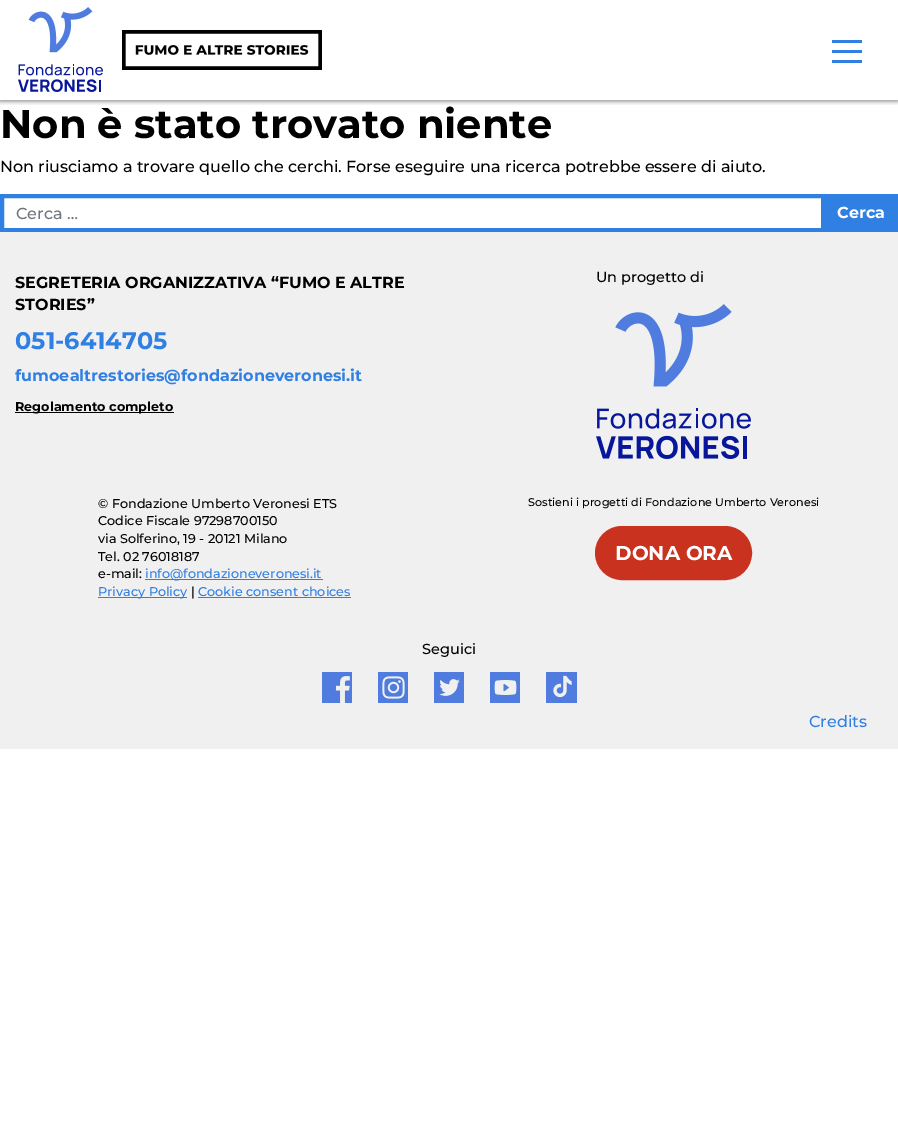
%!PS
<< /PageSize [898 1124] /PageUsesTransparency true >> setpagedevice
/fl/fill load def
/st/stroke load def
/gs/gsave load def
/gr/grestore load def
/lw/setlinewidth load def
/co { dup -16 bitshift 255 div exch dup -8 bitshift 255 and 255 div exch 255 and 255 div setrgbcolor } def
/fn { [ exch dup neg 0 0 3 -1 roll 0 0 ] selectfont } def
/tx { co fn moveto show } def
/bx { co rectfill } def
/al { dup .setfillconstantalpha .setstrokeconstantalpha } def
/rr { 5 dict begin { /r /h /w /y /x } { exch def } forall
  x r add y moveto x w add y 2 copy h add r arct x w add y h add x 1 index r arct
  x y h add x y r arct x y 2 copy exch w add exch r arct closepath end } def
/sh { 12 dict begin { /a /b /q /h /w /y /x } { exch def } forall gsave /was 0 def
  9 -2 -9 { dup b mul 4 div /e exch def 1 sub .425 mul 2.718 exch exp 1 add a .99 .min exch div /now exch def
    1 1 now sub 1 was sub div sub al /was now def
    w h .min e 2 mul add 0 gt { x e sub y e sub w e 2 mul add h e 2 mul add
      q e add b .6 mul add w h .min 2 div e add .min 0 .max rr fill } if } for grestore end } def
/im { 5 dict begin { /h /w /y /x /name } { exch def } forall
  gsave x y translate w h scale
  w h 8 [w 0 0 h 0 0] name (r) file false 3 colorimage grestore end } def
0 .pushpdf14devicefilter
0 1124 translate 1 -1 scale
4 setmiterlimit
0 0 898 1124 16#FFFFFF bx
gs
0 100 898 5 rectclip
16#000000 co
0 1 898 100 0 2.5 .5 sh
gr
(media/1.raw) 18 7 85 85 im
(media/2.raw) 122 30 200 40 im
832 50 30 3 16#307FE2 bx
832 40 30 3 16#307FE2 bx
832 60 30 3 16#307FE2 bx
4 lw
2 196 821 34 rectstroke
825 194 73 38 16#307FE2 bx
0 232 898 517 16#F0F0F0 bx
15 412 159 1 16#000000 bx
(media/3.raw) 596 304 155 155 im
145 579 178 1 16#307FE2 bx
98 597 89 1 16#307FE2 bx
198 597 153 1 16#307FE2 bx
16#C8321F co
597 528 153 50 25 rr gs fl gr
st
(media/4.raw) 322 672 30 31 im
(media/5.raw) 378 672 30 31 im
(media/6.raw) 434 672 30 31 im
(media/7.raw) 490 672 30 31 im
(media/8.raw) 546 672 31 31 im
(Non è stato trovato niente) 0 138 /Montserrat-Bold 40 16#000000 tx
(Non riusciamo a trovare quello che cerchi. Forse eseguire una ricerca potrebbe essere di aiuto.) 0 172 /Montserrat-Medium 16 16#000000 tx
(Cerca …) 16 219 /Montserrat-Medium 16 16#6C757D tx
(Cerca) 837 218 /Montserrat-Bold 16 16#FFFFFF tx
(SEGRETERIA ORGANIZZATIVA “FUMO E ALTRE) 15 288 /Montserrat-Bold 16 16#000000 tx
(STORIES”) 15 310 /Montserrat-Bold 16 16#000000 tx
(051-6414705) 15 349 /Montserrat-Bold 24 16#307FE2 tx
(fumoealtrestories@fondazioneveronesi.it) 15 381 /Montserrat-Bold 16 16#307FE2 tx
(Regolamento completo) 15 411 /Montserrat-Bold 12.75 16#000000 tx
(Un progetto di) 596 282 /Montserrat-Medium 14.5 16#000000 tx
(© Fondazione Umberto Veronesi ETS) 98 508 /Montserrat-Medium 12.75 16#000000 tx
(Codice Fiscale 97298700150) 98 525 /Montserrat-Medium 12.75 16#000000 tx
(via Solferino, 19 - 20121 Milano) 98 543 /Montserrat-Medium 12.75 16#000000 tx
(Tel. 02 76018187) 98 561 /Montserrat-Medium 12.75 16#000000 tx
(e-mail:) 98 578 /Montserrat-Medium 12.75 16#000000 tx
(info@fondazioneveronesi.it) 145 578 /Montserrat-Medium 12.75 16#307FE2 tx
(Privacy Policy) 98 596 /Montserrat-Medium 12.75 16#307FE2 tx
(|) 191 596 /Montserrat-Medium 12.75 16#000000 tx
(Cookie consent choices) 198 596 /Montserrat-Medium 12.75 16#307FE2 tx
(Sostieni i progetti di Fondazione Umberto Veronesi) 528 506 /Montserrat-Medium 11.2 16#000000 tx
(DONA ORA) 615 560 /Montserrat-Bold 20 16#FFFFFF tx
(Seguici) 422 654 /Montserrat-Medium 14.5 16#000000 tx
(Credits) 809 727 /Montserrat-Medium 16 16#307FE2 tx
.poppdf14devicefilter showpage
